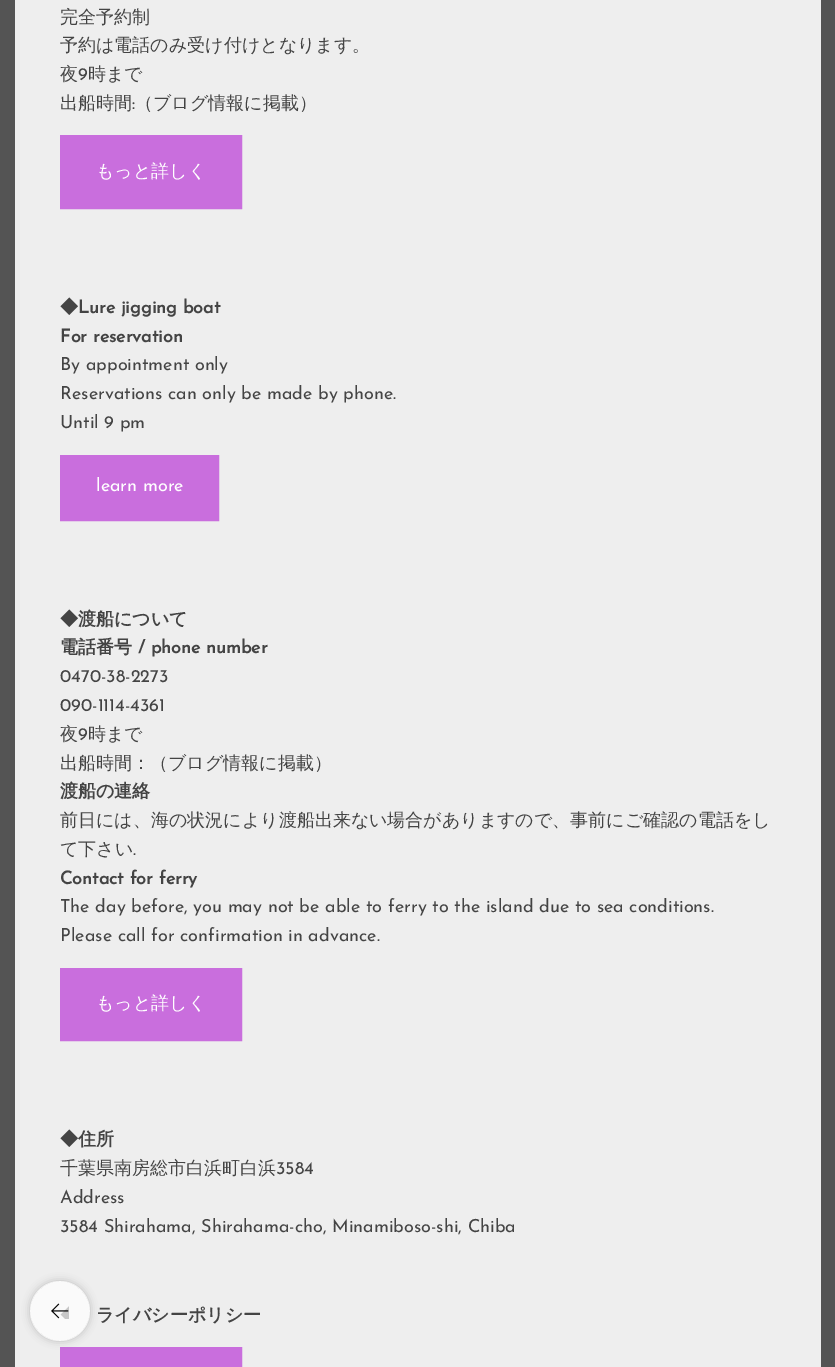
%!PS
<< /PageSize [835 1367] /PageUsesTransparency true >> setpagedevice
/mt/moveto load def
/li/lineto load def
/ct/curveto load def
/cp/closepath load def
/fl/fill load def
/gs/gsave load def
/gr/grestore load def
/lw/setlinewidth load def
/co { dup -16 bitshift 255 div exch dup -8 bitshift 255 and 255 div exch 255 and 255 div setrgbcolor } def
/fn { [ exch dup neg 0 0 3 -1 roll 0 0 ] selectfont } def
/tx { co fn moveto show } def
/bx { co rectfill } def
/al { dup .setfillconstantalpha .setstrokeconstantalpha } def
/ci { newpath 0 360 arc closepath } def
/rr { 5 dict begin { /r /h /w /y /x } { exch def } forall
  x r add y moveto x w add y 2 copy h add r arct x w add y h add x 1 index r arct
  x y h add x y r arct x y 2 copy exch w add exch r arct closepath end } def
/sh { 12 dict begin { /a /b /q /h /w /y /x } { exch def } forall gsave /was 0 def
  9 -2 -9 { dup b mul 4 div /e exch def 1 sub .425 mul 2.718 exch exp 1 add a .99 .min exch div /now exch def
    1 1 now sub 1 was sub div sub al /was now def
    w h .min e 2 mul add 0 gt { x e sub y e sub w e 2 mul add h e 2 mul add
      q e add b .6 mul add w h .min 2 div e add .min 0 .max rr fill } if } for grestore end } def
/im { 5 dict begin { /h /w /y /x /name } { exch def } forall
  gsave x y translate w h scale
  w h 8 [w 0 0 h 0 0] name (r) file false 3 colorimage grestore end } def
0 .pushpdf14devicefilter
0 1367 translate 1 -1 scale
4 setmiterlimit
0 0 835 1367 16#545454 bx
15 0 806 1367 16#EEEEEE bx
16#C96EDD co
3 lw
61.5 136.5 179 71 rectstroke
63 138 176 68 16#C96EDD bx
61.5 456.5 156 63 rectstroke
63 458 153 60 16#C96EDD bx
61.5 969.5 179 70 rectstroke
63 971 176 67 16#C96EDD bx
61.5 1348.5 179 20 rectstroke
63 1350 176 17 16#C96EDD bx
gs
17 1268 mt 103 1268 li 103 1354 li 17 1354 li cp 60 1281 mt 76.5 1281 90 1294.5 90 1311 ct 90 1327.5 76.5 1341 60 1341 ct 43.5 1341 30 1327.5 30 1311 ct 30 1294.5 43.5 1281 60 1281 ct cp eoclip newpath
16#000000 co
30 1281 60 60 30 4 .2 sh
gr
0.7 al
16#FFFFFF co
60 1311 30 ci fl
1 al
(media/1.raw) 51 1303 18 16 im
(完全予約制) 60 23 /WenQuanYiZenHei-Medium 18 16#444444 tx
(予約は電話のみ受け付けとなります。) 60 51 /WenQuanYiZenHei-Medium 18 16#444444 tx
(夜) 60 80 /WenQuanYiZenHei-Medium 18 16#444444 tx
(9) 78 80 /JosefinSans-Thin 18 16#444444 tx
(時まで) 88 80 /WenQuanYiZenHei-Medium 18 16#444444 tx
(出船時間) 60 109 /WenQuanYiZenHei-Medium 18 16#444444 tx
(:) 132 109 /JosefinSans-Thin 18 16#444444 tx
(（ブログ情報に掲載）) 135 109 /WenQuanYiZenHei-Medium 18 16#444444 tx
(もっと詳しく) 96 177 /WenQuanYiZenHei-Medium 18 16#FFFFFF tx
(◆) 60 313 /WenQuanYiZenHei-Bold 18 16#444444 tx
(Lure jigging boat) 78 313 /JosefinSans-Bold 18 16#444444 tx
(For reservation) 60 342 /JosefinSans-Bold 18 16#444444 tx
(By appointment only) 60 370 /JosefinSans-Thin 18 16#444444 tx
(Reservations can only be made by phone.) 60 399 /JosefinSans-Thin 18 16#444444 tx
(Until 9 pm) 60 428 /JosefinSans-Thin 18 16#444444 tx
(learn more) 96 491 /JosefinSans-Thin 18 16#FFFFFF tx
(◆渡船について) 60 625 /WenQuanYiZenHei-Bold 18 16#444444 tx
(電話番号) 60 653 /WenQuanYiZenHei-Bold 18 16#444444 tx
(/ phone number) 138 653 /JosefinSans-Bold 18 16#444444 tx
(0470-38-2273) 60 682 /JosefinSans-Thin 18 16#444444 tx
(090-1114-4361) 60 711 /JosefinSans-Thin 18 16#444444 tx
(夜) 60 740 /WenQuanYiZenHei-Medium 18 16#444444 tx
(9) 78 740 /JosefinSans-Thin 18 16#444444 tx
(時まで) 88 740 /WenQuanYiZenHei-Medium 18 16#444444 tx
(出船時間：（ブログ情報に掲載）) 60 769 /WenQuanYiZenHei-Medium 18 16#444444 tx
(渡船の連絡) 60 797 /WenQuanYiZenHei-Bold 18 16#444444 tx
(前日には、海の状況により渡船出来ない場合がありますので、事前にご確認の電話をし) 60 826 /WenQuanYiZenHei-Medium 18 16#444444 tx
(て下さい) 60 855 /WenQuanYiZenHei-Medium 18 16#444444 tx
(.) 133 855 /JosefinSans-Thin 18 16#444444 tx
(Contact for ferry) 60 884 /JosefinSans-Bold 18 16#444444 tx
(The day before, you may not be able to ferry to the island due to sea conditions.) 60 912 /JosefinSans-Thin 18 16#444444 tx
(Please call for confirmation in advance.) 60 941 /JosefinSans-Thin 18 16#444444 tx
(もっと詳しく) 96 1009 /WenQuanYiZenHei-Medium 18 16#FFFFFF tx
(◆住所) 60 1145 /WenQuanYiZenHei-Bold 18 16#444444 tx
(千葉県南房総市白浜町白浜) 60 1174 /WenQuanYiZenHei-Medium 18 16#444444 tx
(3584) 276 1174 /JosefinSans-Thin 18 16#444444 tx
(Address) 60 1203 /JosefinSans-Thin 18 16#444444 tx
(3584 Shirahama, Shirahama-cho, Minamiboso-shi, Chiba) 60 1232 /JosefinSans-Thin 18 16#444444 tx
(ライバシーポリシー) 96 1321 /WenQuanYiZenHei-Bold 18 16#444444 tx
.poppdf14devicefilter showpage
